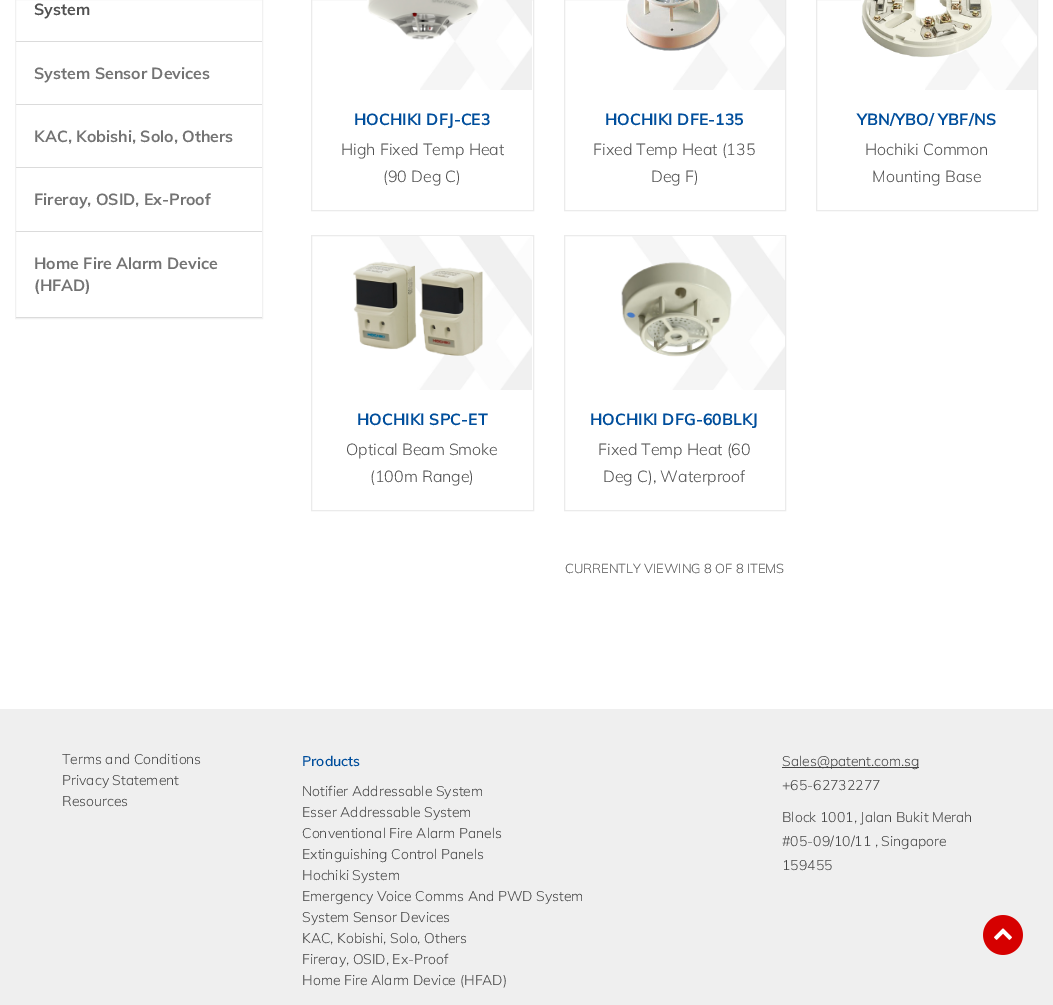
%!PS
<< /PageSize [1053 1005] >> setpagedevice
/co { dup -16 bitshift 255 div exch dup -8 bitshift 255 and 255 div exch 255 and 255 div setrgbcolor } def
/fn { [ exch dup neg 0 0 3 -1 roll 0 0 ] selectfont } def
/tx { co fn moveto show } def
/bx { co rectfill } def
/im { 5 dict begin { /h /w /y /x /name } { exch def } forall
  gsave x y translate w h scale
  w h 8 [w 0 0 h 0 0] name (r) file false 3 colorimage grestore end } def
0 1005 translate 1 -1 scale
4 setmiterlimit
0 0 1053 1005 16#FFFFFF bx
16#F1F1F1 co
15.5 -.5 247 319 rectstroke
16 41 246 1 16#DBDBDB bx
16 104 246 1 16#DBDBDB bx
16 167 246 1 16#DBDBDB bx
16 231 246 1 16#DBDBDB bx
16 317 246 1 16#DBDBDB bx
16#EBEBEB co
311.5 -.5 222 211 rectstroke
(media/1.raw) 420 0 112 90 im
(media/2.raw) 367 0 112 40 im
564.5 -.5 221 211 rectstroke
(media/3.raw) 673 0 112 90 im
(media/4.raw) 626 0 95 51 im
816.5 -.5 221 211 rectstroke
(media/1.raw) 925 0 112 90 im
(media/5.raw) 861 0 131 58 im
311.5 235.5 222 275 rectstroke
(media/6.raw) 379 236 153 154 im
(media/7.raw) 353 261 130 95 im
564.5 235.5 221 275 rectstroke
(media/8.raw) 632 236 153 154 im
(media/9.raw) 621 262 111 95 im
0 709 1053 296 16#EFEFEF bx
782 767 137 1 16#444444 bx
(media/10.raw) 983 915 40 40 im
(System) 34 15 /Muli-Bold 16 16#515151 tx
(System Sensor Devices) 34 79 /Muli-Bold 16 16#737373 tx
(KAC, Kobishi, Solo, Others) 34 142 /Muli-Bold 16 16#737373 tx
(Fireray, OSID, Ex-Proof) 34 205 /Muli-Bold 16 16#737373 tx
(Home Fire Alarm Device) 34 269 /Muli-Bold 16 16#737373 tx
(\(HFAD\)) 34 291 /Muli-Bold 16 16#737373 tx
(HOCHIKI DFJ-CE3) 354 125 /Muli-Bold 16 16#004E9C tx
(High Fixed Temp Heat) 341 155 /Muli-Light 16 16#515151 tx
(\(90 Deg C\)) 383 182 /Muli-Light 16 16#515151 tx
(HOCHIKI DFE-135) 605 125 /Muli-Bold 16 16#004E9C tx
(Fixed Temp Heat \(135) 593 155 /Muli-Light 16 16#515151 tx
(Deg F\)) 651 182 /Muli-Light 16 16#515151 tx
(YBN/YBO/ YBF/NS) 857 125 /Muli-Bold 16 16#004E9C tx
(Hochiki Common) 865 155 /Muli-Light 16 16#515151 tx
(Mounting Base) 872 182 /Muli-Light 16 16#515151 tx
(HOCHIKI SPC-ET) 357 425 /Muli-Bold 16 16#004E9C tx
(Optical Beam Smoke) 346 455 /Muli-Light 16 16#515151 tx
(\(100m Range\)) 370 482 /Muli-Light 16 16#515151 tx
(HOCHIKI DFG-60BLKJ) 590 425 /Muli-Bold 16 16#004E9C tx
(Fixed Temp Heat \(60) 598 455 /Muli-Light 16 16#515151 tx
(Deg C\), Waterproof) 603 482 /Muli-Light 16 16#515151 tx
(CURRENTLY VIEWING 8 OF 8 ITEMS) 565 573 /Muli-Light 13 16#515151 tx
(Terms and Conditions) 62 764 /Muli-Light 14 16#444444 tx
(Privacy Statement) 62 785 /Muli-Light 14 16#444444 tx
(Resources) 62 806 /Muli-Light 14 16#444444 tx
(Products) 302 766 /Muli-SemiBold 14 16#004E9C tx
(Notifier Addressable System) 302 796 /Muli-Light 14 16#444444 tx
(Esser Addressable System) 302 817 /Muli-Light 14 16#444444 tx
(Conventional Fire Alarm Panels) 302 838 /Muli-Light 14 16#444444 tx
(Extinguishing Control Panels) 302 859 /Muli-Light 14 16#444444 tx
(Hochiki System) 302 880 /Muli-Light 14 16#444444 tx
(Emergency Voice Comms And PWD System) 302 901 /Muli-Light 14 16#444444 tx
(System Sensor Devices) 302 922 /Muli-Light 14 16#444444 tx
(KAC, Kobishi, Solo, Others) 302 943 /Muli-Light 14 16#444444 tx
(Fireray, OSID, Ex-Proof) 302 964 /Muli-Light 14 16#444444 tx
(Home Fire Alarm Device \(HFAD\)) 302 985 /Muli-Light 14 16#444444 tx
(Sales@patent.com.sg) 782 766 /Muli-Light 14 16#444444 tx
(+65-62732277) 782 790 /Muli-Light 14 16#444444 tx
(Block 1001, Jalan Bukit Merah) 782 822 /Muli-Light 14 16#444444 tx
(#05-09/10/11 , Singapore) 782 846 /Muli-Light 14 16#444444 tx
(159455) 782 870 /Muli-Light 14 16#444444 tx
showpage
